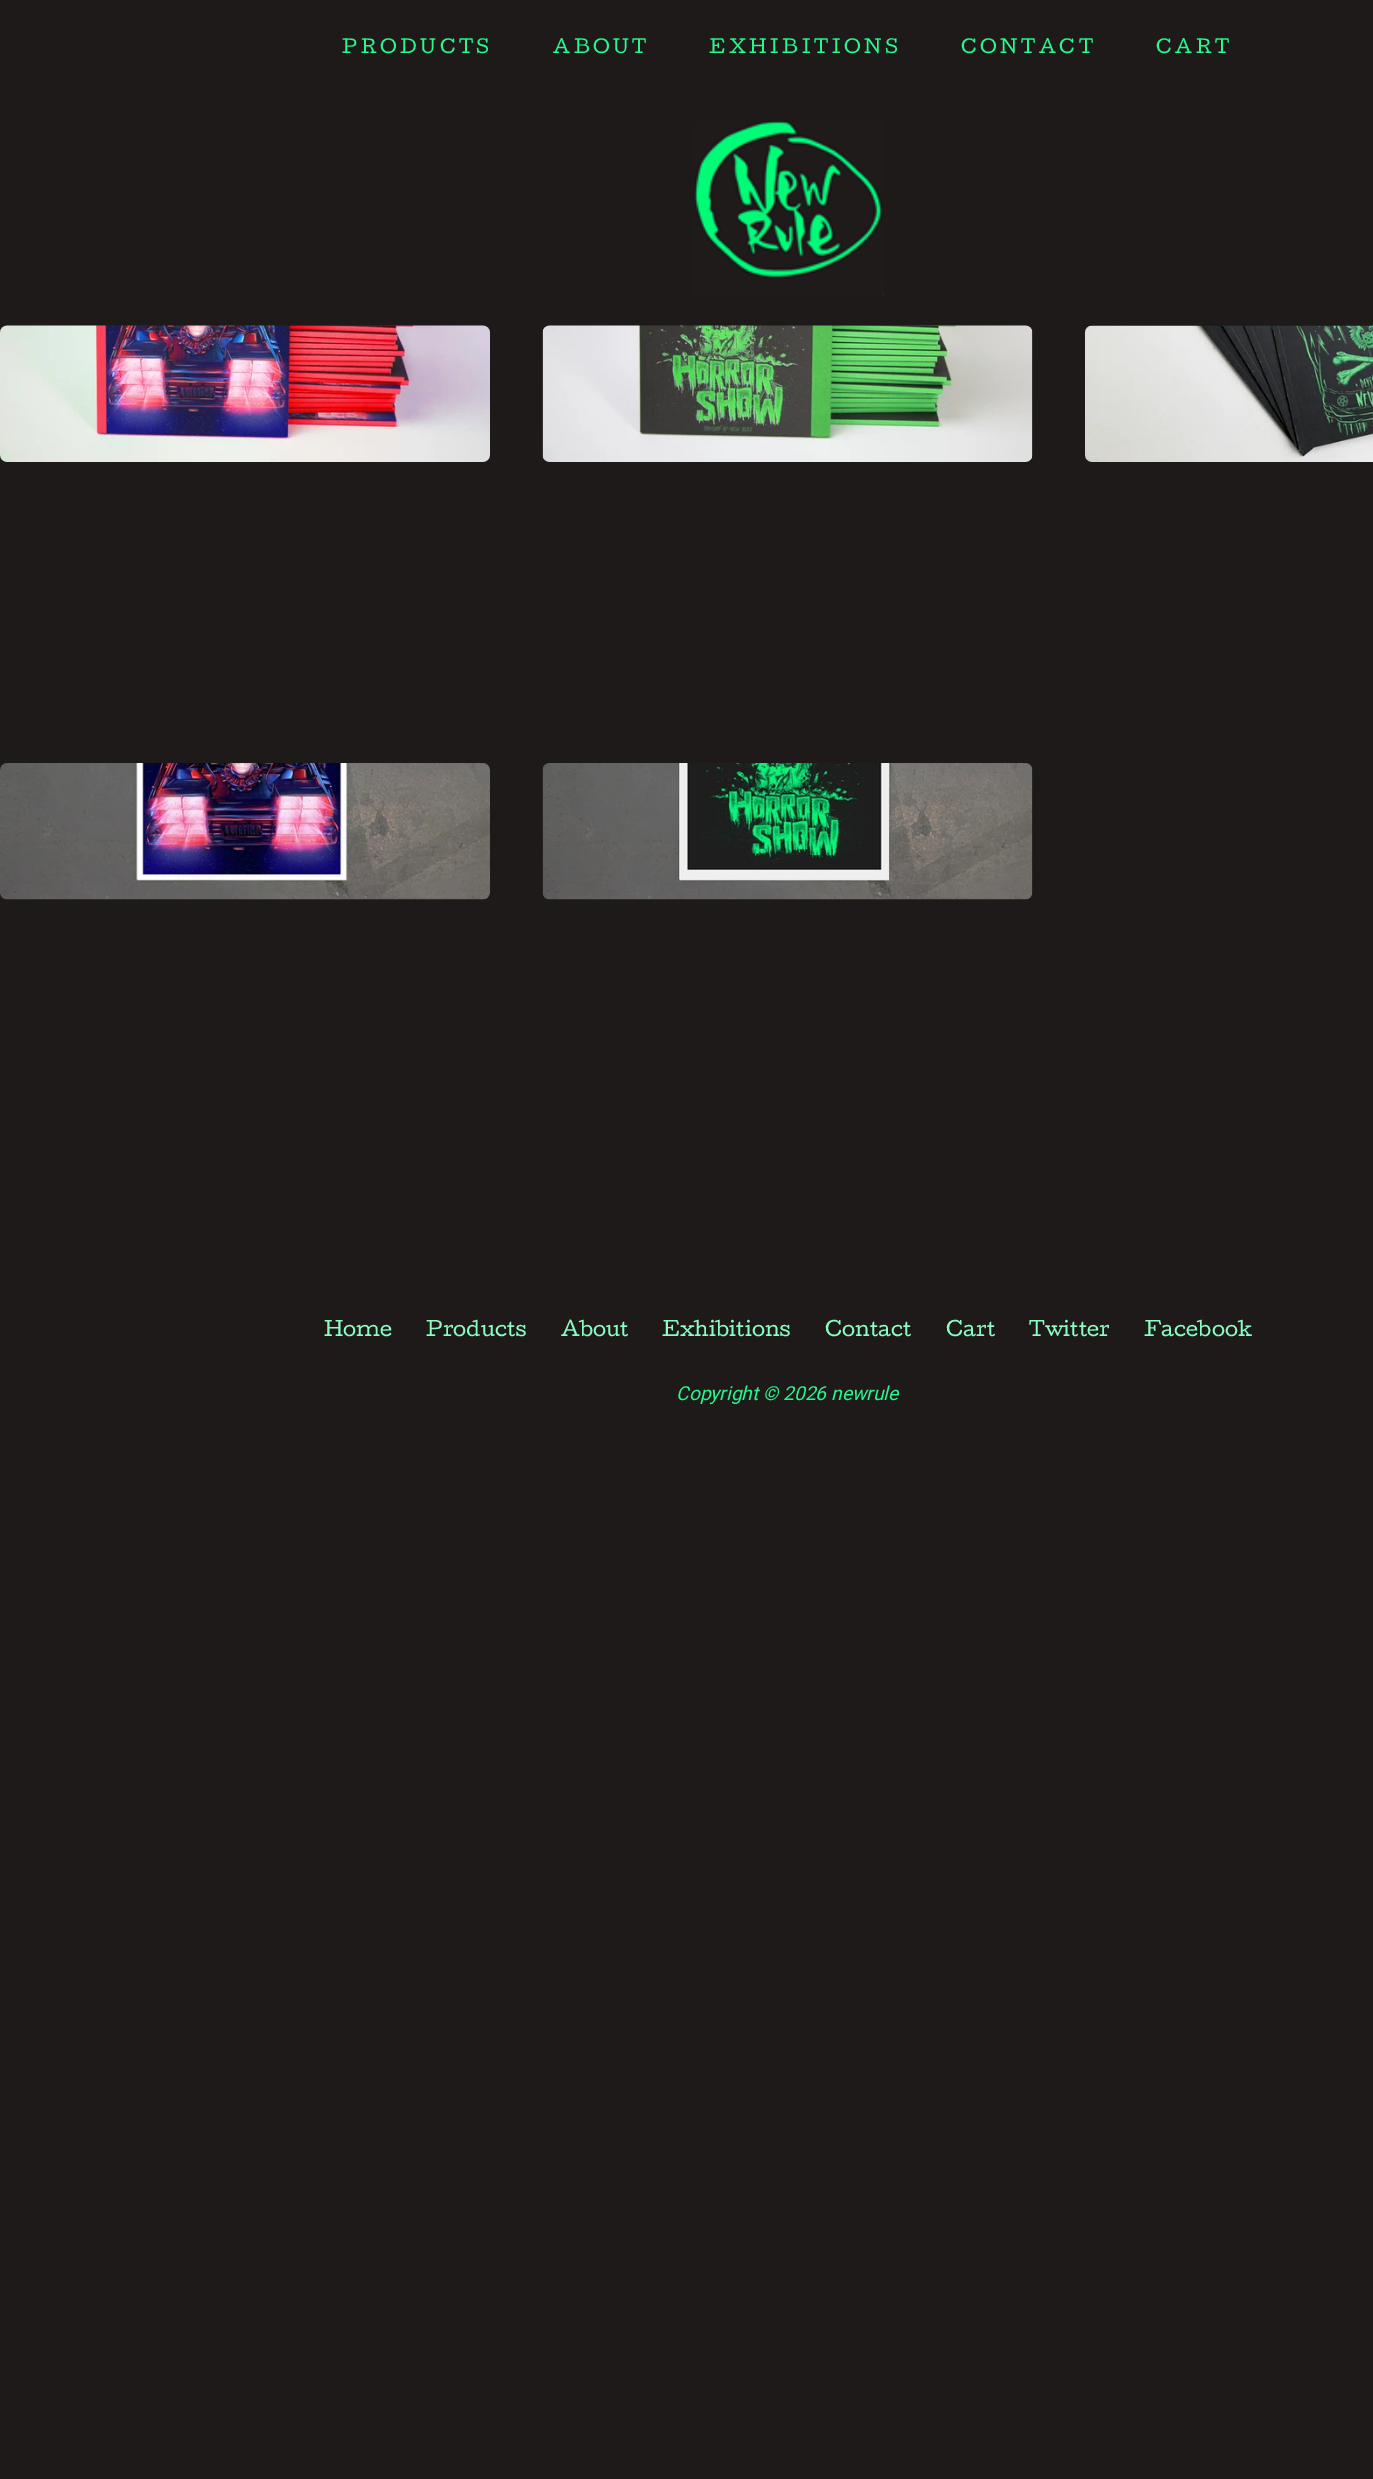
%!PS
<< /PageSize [1373 2479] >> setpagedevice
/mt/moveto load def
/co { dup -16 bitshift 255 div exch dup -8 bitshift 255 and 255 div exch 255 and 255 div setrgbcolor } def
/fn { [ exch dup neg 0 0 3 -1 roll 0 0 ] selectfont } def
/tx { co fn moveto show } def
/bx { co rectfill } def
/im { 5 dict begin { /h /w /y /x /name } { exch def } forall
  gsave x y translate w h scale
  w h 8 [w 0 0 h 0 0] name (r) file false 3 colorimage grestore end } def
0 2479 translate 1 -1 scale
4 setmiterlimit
0 0 1373 2479 16#1F1A1A bx
(media/1.raw) 693 121 191 175 im
(media/2.raw) 0 325 490 137 im
(media/3.raw) 542 325 491 137 im
(media/4.raw) 1085 325 288 137 im
(media/5.raw) 0 763 490 137 im
(media/6.raw) 542 763 491 137 im
/Cutive-Regular 17.5 fn
16#28F78C co
342 53 mt 3.5 0 (PRODUCTS) ashow
553 53 mt 3.5 0 (ABOUT) ashow
709 53 mt 3.5 0 (EXHIBITIONS) ashow
961 53 mt 3.5 0 (CONTACT) ashow
1156 53 mt 3.5 0 (CART) ashow
(Home) 324 1336 /Cutive-Regular 19.25 16#8DFCC3 tx
(Products) 426 1336 /Cutive-Regular 19.25 16#8DFCC3 tx
(About) 561 1336 /Cutive-Regular 19.25 16#8DFCC3 tx
(Exhibitions) 662 1336 /Cutive-Regular 19.25 16#8DFCC3 tx
(Contact) 825 1336 /Cutive-Regular 19.25 16#8DFCC3 tx
(Cart) 946 1336 /Cutive-Regular 19.25 16#8DFCC3 tx
(Twitter) 1029 1336 /Cutive-Regular 19.25 16#8DFCC3 tx
(Facebook) 1144 1336 /Cutive-Regular 19.25 16#8DFCC3 tx
(Copyright © 2026 newrule) 676 1400 /Roboto-Italic 19.25 16#28F78C tx
showpage
